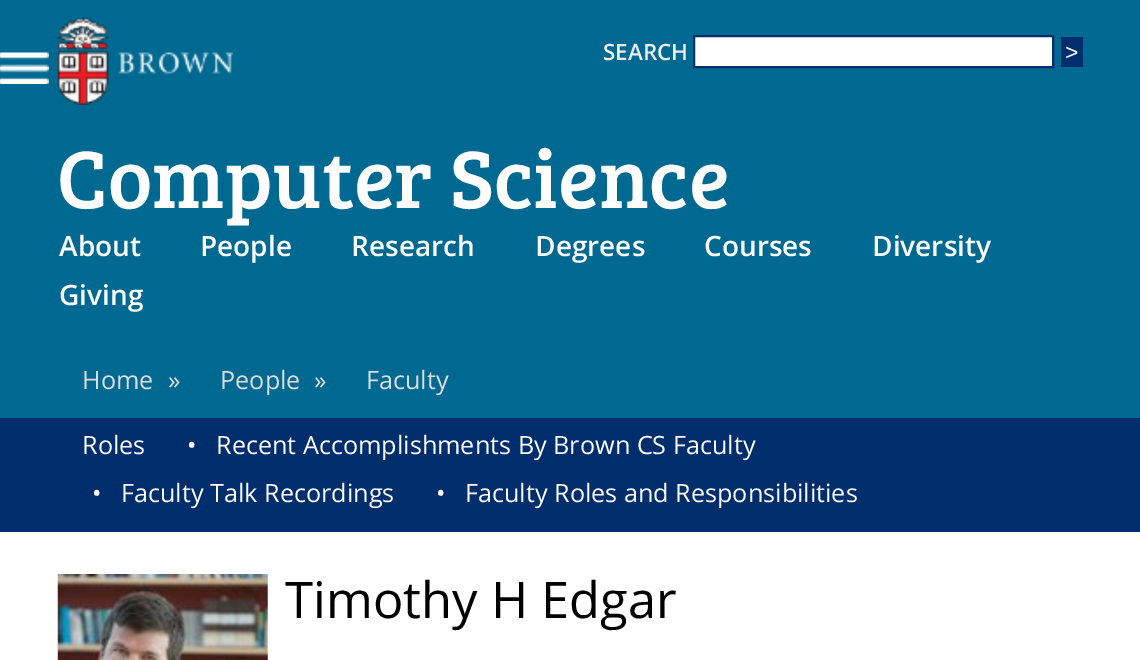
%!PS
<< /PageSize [1140 660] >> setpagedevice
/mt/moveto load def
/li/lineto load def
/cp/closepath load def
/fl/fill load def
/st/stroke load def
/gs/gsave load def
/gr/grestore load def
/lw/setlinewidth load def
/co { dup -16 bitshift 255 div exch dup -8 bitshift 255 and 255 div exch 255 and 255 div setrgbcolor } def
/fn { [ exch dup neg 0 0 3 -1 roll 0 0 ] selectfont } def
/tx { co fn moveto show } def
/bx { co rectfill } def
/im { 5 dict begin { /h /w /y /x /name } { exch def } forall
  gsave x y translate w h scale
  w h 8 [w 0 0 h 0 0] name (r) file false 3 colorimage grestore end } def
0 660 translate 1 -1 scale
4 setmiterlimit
0 0 1140 660 16#006991 bx
(media/1.raw) 0 52 49 32 im
(media/2.raw) 57 17 176 88 im
16#FFFFFF co
694 36 mt 1053 36 li 1053 67 li 694 67 li cp gs fl gr
16#002E6D co
2 lw
st
1061 37 22 30 16#002E6D bx
0 418 1140 114 16#002E6D bx
0 532 1140 128 16#FFFFFF bx
(media/3.raw) 57 574 211 86 im
(SEARCH) 603 60 /OpenSans-SemiBold 22.5 16#EEEEEE tx
(>) 1065 60 /LiberationSans-Regular 23 16#FFFFFF tx
(Computer Science) 57 208 /BreeSerif-Regular 84 16#FFFFFF tx
(About) 59 256 /OpenSans-SemiBold 28 16#FFFFFF tx
(People) 200 256 /OpenSans-SemiBold 28 16#FFFFFF tx
(Research) 351 256 /OpenSans-SemiBold 28 16#FFFFFF tx
(Degrees) 535 256 /OpenSans-SemiBold 28 16#FFFFFF tx
(Courses) 704 256 /OpenSans-SemiBold 28 16#FFFFFF tx
(Diversity) 872 256 /OpenSans-SemiBold 28 16#FFFFFF tx
(Giving) 59 305 /OpenSans-SemiBold 28 16#FFFFFF tx
(Home) 82 389 /OpenSans-Regular 25.2 16#DDDDDD tx
(») 168 389 /OpenSans-Regular 25.2 16#DDDDDD tx
(People) 220 389 /OpenSans-Regular 25.2 16#DDDDDD tx
(») 314 389 /OpenSans-Regular 25.2 16#DDDDDD tx
(Faculty) 366 389 /OpenSans-Regular 25.2 16#DDDDDD tx
(Roles) 82 454 /OpenSans-Regular 25.2 16#FFFFFF tx
(•) 187 454 /OpenSans-Regular 25.2 16#FFFFFF tx
(Recent Accomplishments By Brown CS Faculty) 216 454 /OpenSans-Regular 25.2 16#FFFFFF tx
(•) 92 502 /OpenSans-Regular 25.2 16#FFFFFF tx
(Faculty Talk Recordings) 121 502 /OpenSans-Regular 25.2 16#FFFFFF tx
(•) 436 502 /OpenSans-Regular 25.2 16#FFFFFF tx
(Faculty Roles and Responsibilities) 465 502 /OpenSans-Regular 25.2 16#FFFFFF tx
(Timothy H Edgar) 285 618 /OpenSans-Regular 50.5 16#000000 tx
showpage
